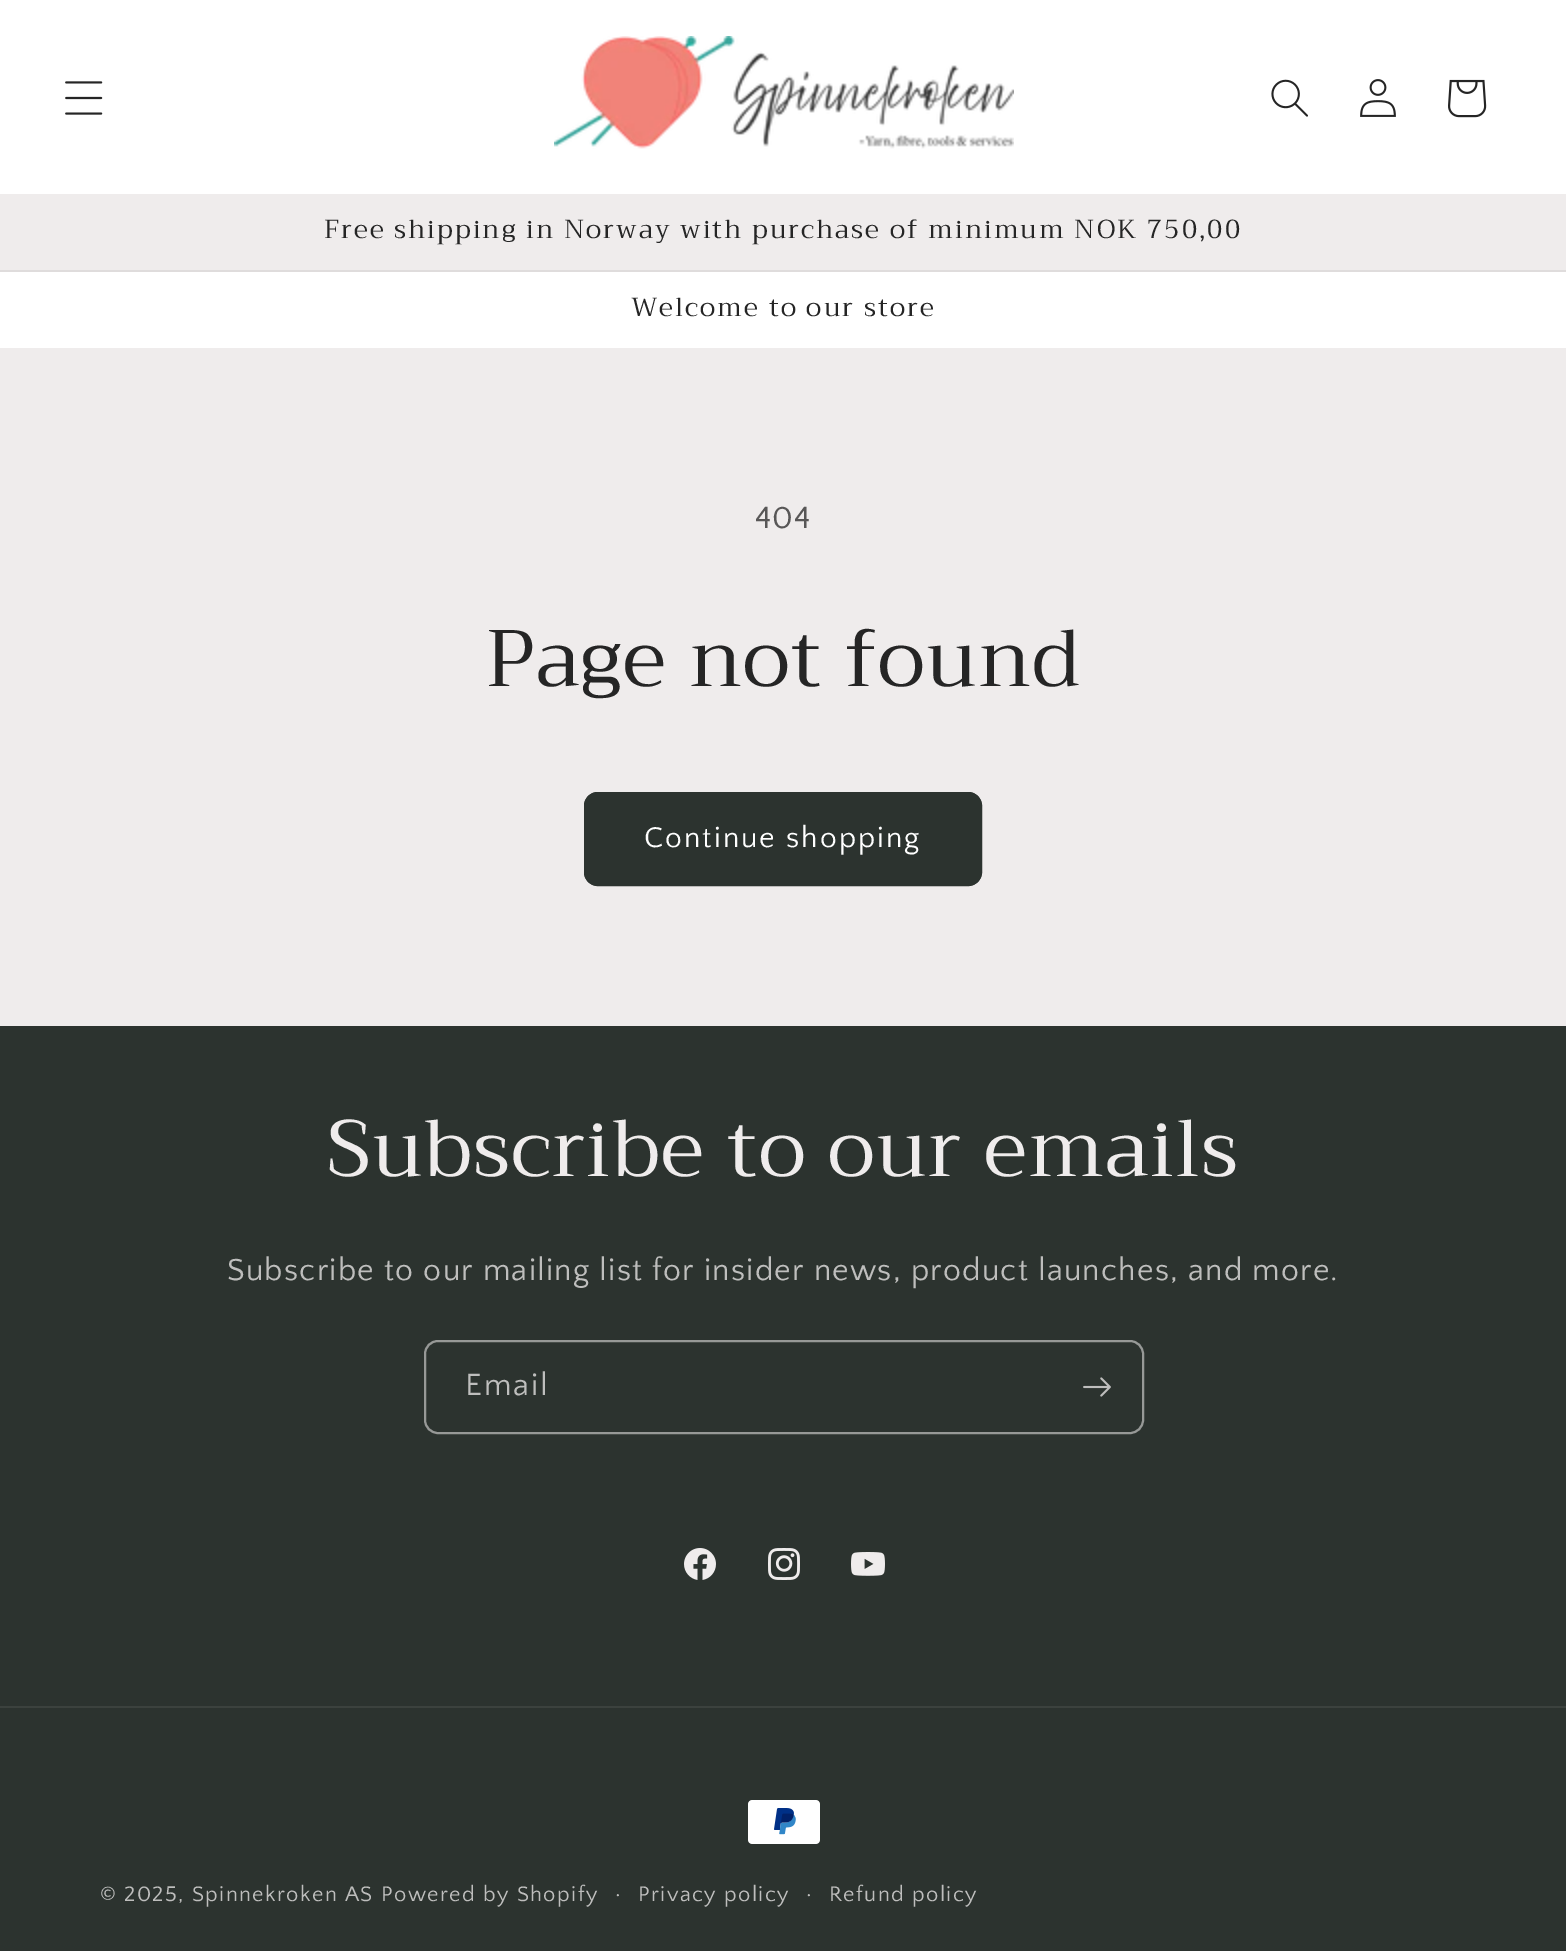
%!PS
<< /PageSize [1566 1951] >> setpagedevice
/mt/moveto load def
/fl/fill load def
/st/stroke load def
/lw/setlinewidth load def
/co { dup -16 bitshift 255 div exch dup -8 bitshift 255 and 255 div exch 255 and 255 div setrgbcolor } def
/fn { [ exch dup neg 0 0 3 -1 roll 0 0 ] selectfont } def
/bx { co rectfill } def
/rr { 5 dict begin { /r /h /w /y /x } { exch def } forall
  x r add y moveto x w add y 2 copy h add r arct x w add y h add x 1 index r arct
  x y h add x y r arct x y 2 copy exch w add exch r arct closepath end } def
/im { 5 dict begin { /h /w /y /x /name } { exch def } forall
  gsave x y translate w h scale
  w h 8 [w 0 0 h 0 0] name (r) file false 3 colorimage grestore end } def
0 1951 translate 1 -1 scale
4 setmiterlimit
0 0 1566 1951 16#EFECEC bx
0 0 1566 194 16#FFFFFF bx
(media/1.raw) 65 81 38 34 im
(media/2.raw) 554 36 460 113 im
(media/3.raw) 1271 79 37 38 im
(media/4.raw) 1360 79 36 38 im
(media/5.raw) 1448 79 39 39 im
0 270 1566 2 16#DFDCDC bx
0 272 1566 76 16#FFFFFF bx
16#2C332F co
584 792 398 94 14 rr fl
2 lw
585 793 396 92 13 rr st
0 1026 1566 925 16#2C332F bx
16#979997 co
425 1341 718 92 13 rr st
(media/6.raw) 1083 1377 28 20 im
(media/7.raw) 684 1548 32 32 im
(media/8.raw) 768 1548 32 32 im
(media/9.raw) 851 1552 34 24 im
0 1706 1566 2 16#3C423E bx
(media/10.raw) 748 1800 72 44 im
/Trirong-Regular 26 fn
16#252525 co
324 238 mt 2 0 (Free shipping in Norway with purchase of minimum NOK 750,00) ashow
631 316 mt 2 0 (Welcome to our store) ashow
/QuattrocentoSans-Regular 32 fn
16#585757 co
755 528 mt 1.2 0 (404) ashow
/Trirong-Regular 80 fn
16#252525 co
486 686 mt 1.2 0 (Page not found) ashow
/QuattrocentoSans-Regular 30 fn
16#FFFFFF co
644 847 mt 2 0 (Continue shopping) ashow
/Trirong-Regular 80 fn
16#EFECEC co
327 1176 mt 1.2 0 (Subscribe to our emails) ashow
/QuattrocentoSans-Regular 32 fn
16#BEBEBD co
227 1280 mt 1.2 0 (Subscribe to our mailing list for insider news, product launches, and more.) ashow
465 1395 mt 2 0 (Email) ashow
/QuattrocentoSans-Regular 22 fn
100 1901 mt 1.4 0 (© 2025, Spinnekroken AS) ashow
381 1901 mt 1.4 0 (Powered by Shopify) ashow
/QuattrocentoSans-Regular 24 fn
615 1901 mt 1.4 0 (·) ashow
/QuattrocentoSans-Regular 22 fn
638 1901 mt 1.4 0 (Privacy policy) ashow
/QuattrocentoSans-Regular 24 fn
806 1901 mt 1.4 0 (·) ashow
/QuattrocentoSans-Regular 22 fn
829 1901 mt 1.4 0 (Refund policy) ashow
showpage
